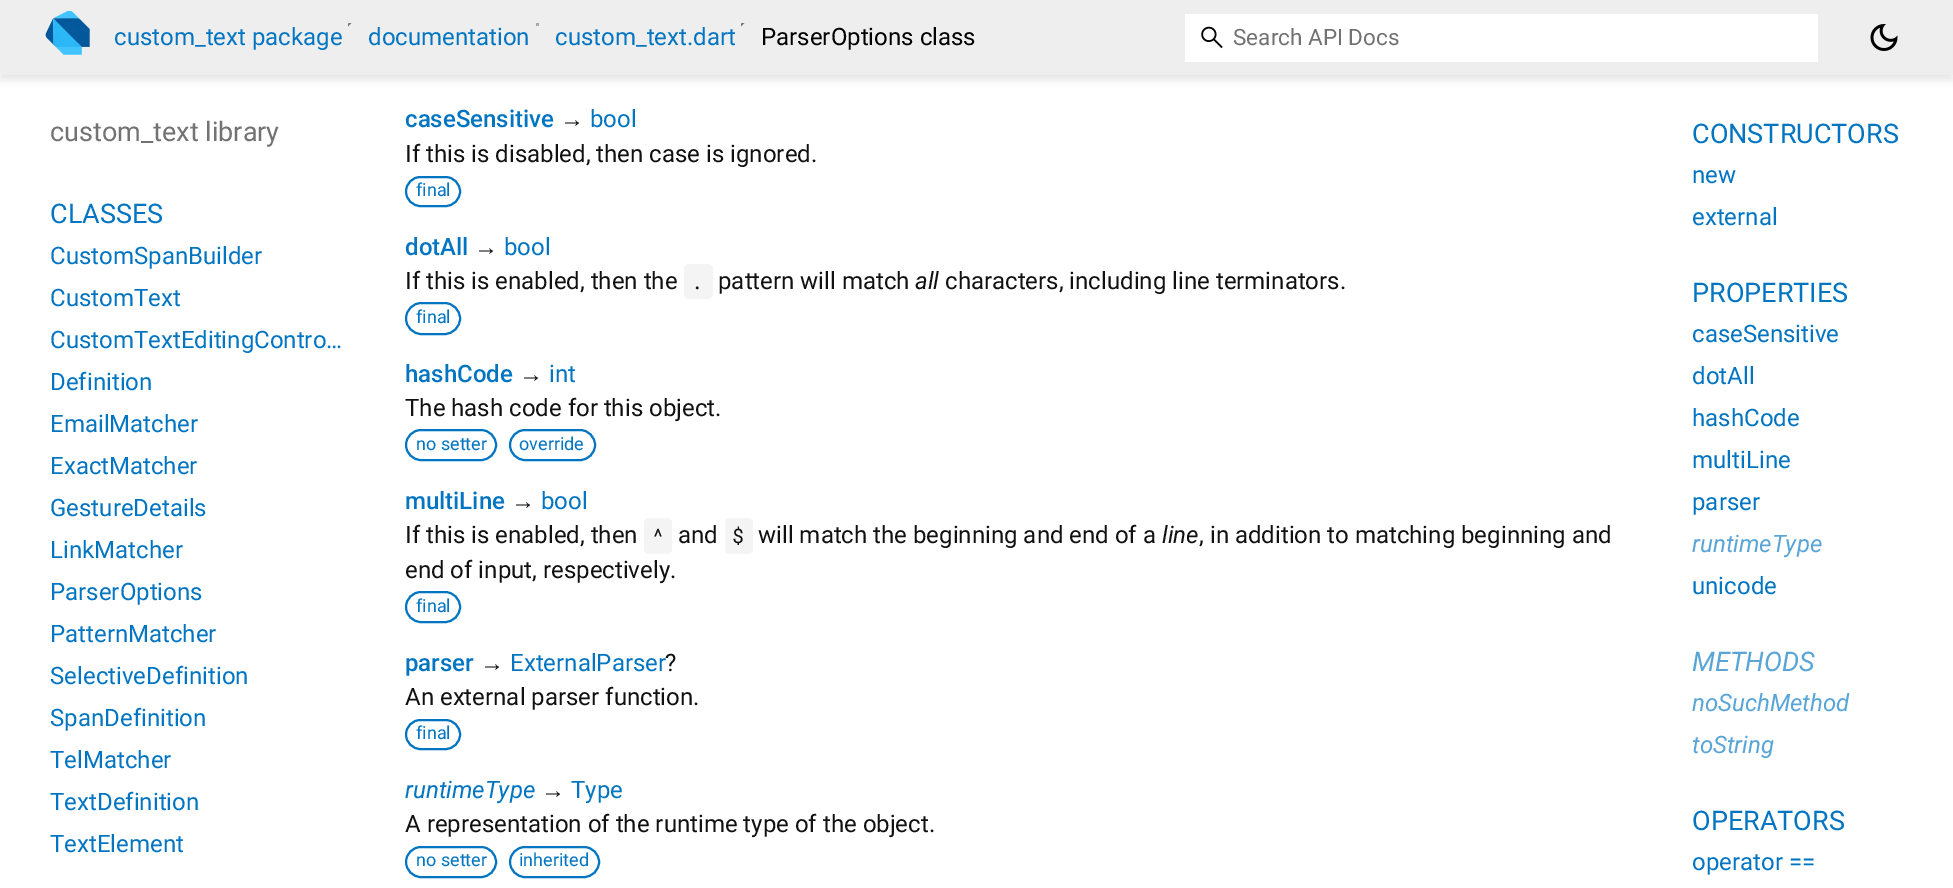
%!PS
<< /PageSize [1953 888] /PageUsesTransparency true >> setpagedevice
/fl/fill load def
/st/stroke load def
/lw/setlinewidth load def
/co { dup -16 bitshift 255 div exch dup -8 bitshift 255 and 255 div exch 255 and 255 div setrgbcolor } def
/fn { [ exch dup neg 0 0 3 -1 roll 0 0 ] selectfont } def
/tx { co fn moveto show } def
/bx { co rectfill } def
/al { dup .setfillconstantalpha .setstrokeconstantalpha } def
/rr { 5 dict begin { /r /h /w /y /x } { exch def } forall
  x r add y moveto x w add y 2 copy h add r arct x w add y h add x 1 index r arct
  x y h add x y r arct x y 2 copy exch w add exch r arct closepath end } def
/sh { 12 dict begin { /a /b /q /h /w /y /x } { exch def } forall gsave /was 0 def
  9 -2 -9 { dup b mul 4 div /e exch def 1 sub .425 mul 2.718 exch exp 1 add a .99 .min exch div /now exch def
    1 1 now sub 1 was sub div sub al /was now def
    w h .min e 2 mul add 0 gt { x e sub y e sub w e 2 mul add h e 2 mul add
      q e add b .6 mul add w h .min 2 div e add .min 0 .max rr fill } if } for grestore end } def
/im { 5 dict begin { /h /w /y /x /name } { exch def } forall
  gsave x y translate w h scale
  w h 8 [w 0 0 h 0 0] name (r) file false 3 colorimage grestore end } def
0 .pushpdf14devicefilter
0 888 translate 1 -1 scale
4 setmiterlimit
0 0 1953 888 16#FFFFFF bx
16#000000 co
0 5 1953 75 0 4 .1 sh
0 0 1953 75 16#EEEEEE bx
(media/1.raw) 45 11 45 44 im
(media/2.raw) 348 23 4 4 im
536 23 3 3 16#A9A9A9 bx
(media/2.raw) 741 23 4 4 im
1185 14 633 48 16#FFFFFF bx
(media/3.raw) 1201 26 22 23 im
(media/4.raw) 1870 24 28 27 im
16#0175C2 co
2 lw
406 177 54 29 14.5 rr st
16#F4F4F4 co
684 264 29 35 5 rr fl
16#0175C2 co
406 303 54 31 15.5 rr st
406 430 90 30 15 rr st
510 430 85 30 15 rr st
16#F4F4F4 co
644 518 28 36 5 rr fl
725 518 28 36 5 rr fl
16#0175C2 co
406 592 54 30 15 rr st
406 720 54 29 14.5 rr st
406 847 90 30 15 rr st
510 847 89 30 15 rr st
(custom_text package) 114 45 /Roboto-Regular 24 16#0175C2 tx
(documentation) 368 45 /Roboto-Regular 24 16#0175C2 tx
(custom_text.dart) 555 45 /Roboto-Regular 24 16#0175C2 tx
(ParserOptions class) 761 45 /Roboto-Regular 24 16#000000 tx
(Search API Docs) 1233 45 /Roboto-Regular 22.5 16#727272 tx
(custom_text library) 50 141 /Roboto-Regular 27 16#727272 tx
(CLASSES) 50 223 /Roboto-Regular 27 16#0175C2 tx
(CustomSpanBuilder) 50 264 /Roboto-Regular 24 16#0175C2 tx
(CustomText) 50 306 /Roboto-Regular 24 16#0175C2 tx
(CustomTextEditingContro…) 50 348 /Roboto-Regular 24 16#0175C2 tx
(Definition) 50 390 /Roboto-Regular 24 16#0175C2 tx
(EmailMatcher) 50 432 /Roboto-Regular 24 16#0175C2 tx
(ExactMatcher) 50 474 /Roboto-Regular 24 16#0175C2 tx
(GestureDetails) 50 516 /Roboto-Regular 24 16#0175C2 tx
(LinkMatcher) 50 558 /Roboto-Regular 24 16#0175C2 tx
(ParserOptions) 50 600 /Roboto-Regular 24 16#0175C2 tx
(PatternMatcher) 50 642 /Roboto-Regular 24 16#0175C2 tx
(SelectiveDefinition) 50 684 /Roboto-Regular 24 16#0175C2 tx
(SpanDefinition) 50 726 /Roboto-Regular 24 16#0175C2 tx
(TelMatcher) 50 768 /Roboto-Regular 24 16#0175C2 tx
(TextDefinition) 50 810 /Roboto-Regular 24 16#0175C2 tx
(TextElement) 50 852 /Roboto-Regular 24 16#0175C2 tx
(caseSensitive) 405 127 /Roboto-Medium 24 16#0175C2 tx
(→) 560 127 /LiberationSans-Regular 24 16#111111 tx
(bool) 590 127 /Roboto-Regular 24 16#0175C2 tx
(If this is disabled, then case is ignored.) 405 162 /Roboto-Regular 24 16#111111 tx
(final) 416 196 /Roboto-Regular 18 16#0175C2 tx
(dotAll) 405 255 /Roboto-Medium 24 16#0175C2 tx
(→) 474 255 /LiberationSans-Regular 24 16#111111 tx
(bool) 504 255 /Roboto-Regular 24 16#0175C2 tx
(If this is enabled, then the) 405 289 /Roboto-Regular 24 16#111111 tx
(.) 691 289 /RobotoMono-Regular 20 16#111111 tx
(pattern will match) 718 289 /Roboto-Regular 24 16#111111 tx
(all) 915 289 /Roboto-Italic 24 16#111111 tx
(characters, including line terminators.) 945 289 /Roboto-Regular 24 16#111111 tx
(final) 416 323 /Roboto-Regular 18 16#0175C2 tx
(hashCode) 405 382 /Roboto-Medium 24 16#0175C2 tx
(→) 519 382 /LiberationSans-Regular 24 16#111111 tx
(int) 549 382 /Roboto-Regular 24 16#0175C2 tx
(The hash code for this object.) 405 416 /Roboto-Regular 24 16#111111 tx
(no setter) 416 450 /Roboto-Regular 18 16#0175C2 tx
(override) 519 450 /Roboto-Regular 18 16#0175C2 tx
(multiLine) 405 509 /Roboto-Medium 24 16#0175C2 tx
(→) 511 509 /LiberationSans-Regular 24 16#111111 tx
(bool) 541 509 /Roboto-Regular 24 16#0175C2 tx
(If this is enabled, then) 405 543 /Roboto-Regular 24 16#111111 tx
(^) 652 543 /RobotoMono-Regular 20 16#111111 tx
(and) 678 543 /Roboto-Regular 24 16#111111 tx
($) 732 543 /RobotoMono-Regular 20 16#111111 tx
(will match the beginning and end of a) 758 543 /Roboto-Regular 24 16#111111 tx
(line) 1162 543 /Roboto-Italic 24 16#111111 tx
(, in addition to matching beginning and) 1199 543 /Roboto-Regular 24 16#111111 tx
(end of input, respectively.) 405 578 /Roboto-Regular 24 16#111111 tx
(final) 416 612 /Roboto-Regular 18 16#0175C2 tx
(parser) 405 671 /Roboto-Medium 24 16#0175C2 tx
(→) 480 671 /LiberationSans-Regular 24 16#111111 tx
(ExternalParser) 510 671 /Roboto-Regular 24 16#0175C2 tx
(?) 665 671 /Roboto-Regular 24 16#111111 tx
(An external parser function.) 405 705 /Roboto-Regular 24 16#111111 tx
(final) 416 739 /Roboto-Regular 18 16#0175C2 tx
(runtimeType) 405 798 /Roboto-Italic 24 16#0175C2 tx
(→) 541 798 /LiberationSans-Regular 24 16#111111 tx
(Type) 571 798 /Roboto-Regular 24 16#0175C2 tx
(A representation of the runtime type of the object.) 405 832 /Roboto-Regular 24 16#111111 tx
(no setter) 416 866 /Roboto-Regular 18 16#0175C2 tx
(inherited) 519 866 /Roboto-Regular 18 16#0175C2 tx
(CONSTRUCTORS) 1692 143 /Roboto-Regular 27 16#0175C2 tx
(new) 1692 183 /Roboto-Regular 24 16#0175C2 tx
(external) 1692 225 /Roboto-Regular 24 16#0175C2 tx
(PROPERTIES) 1692 302 /Roboto-Regular 27 16#0175C2 tx
(caseSensitive) 1692 342 /Roboto-Regular 24 16#0175C2 tx
(dotAll) 1692 384 /Roboto-Regular 24 16#0175C2 tx
(hashCode) 1692 426 /Roboto-Regular 24 16#0175C2 tx
(multiLine) 1692 468 /Roboto-Regular 24 16#0175C2 tx
(parser) 1692 510 /Roboto-Regular 24 16#0175C2 tx
(runtimeType) 1692 552 /Roboto-Italic 24 16#5AA5D7 tx
(unicode) 1692 594 /Roboto-Regular 24 16#0175C2 tx
(METHODS) 1692 671 /Roboto-Italic 27 16#5AA5D7 tx
(noSuchMethod) 1692 711 /Roboto-Italic 24 16#5AA5D7 tx
(toString) 1692 753 /Roboto-Italic 24 16#5AA5D7 tx
(OPERATORS) 1692 830 /Roboto-Regular 27 16#0175C2 tx
(operator ==) 1692 870 /Roboto-Regular 24 16#0175C2 tx
.poppdf14devicefilter showpage
